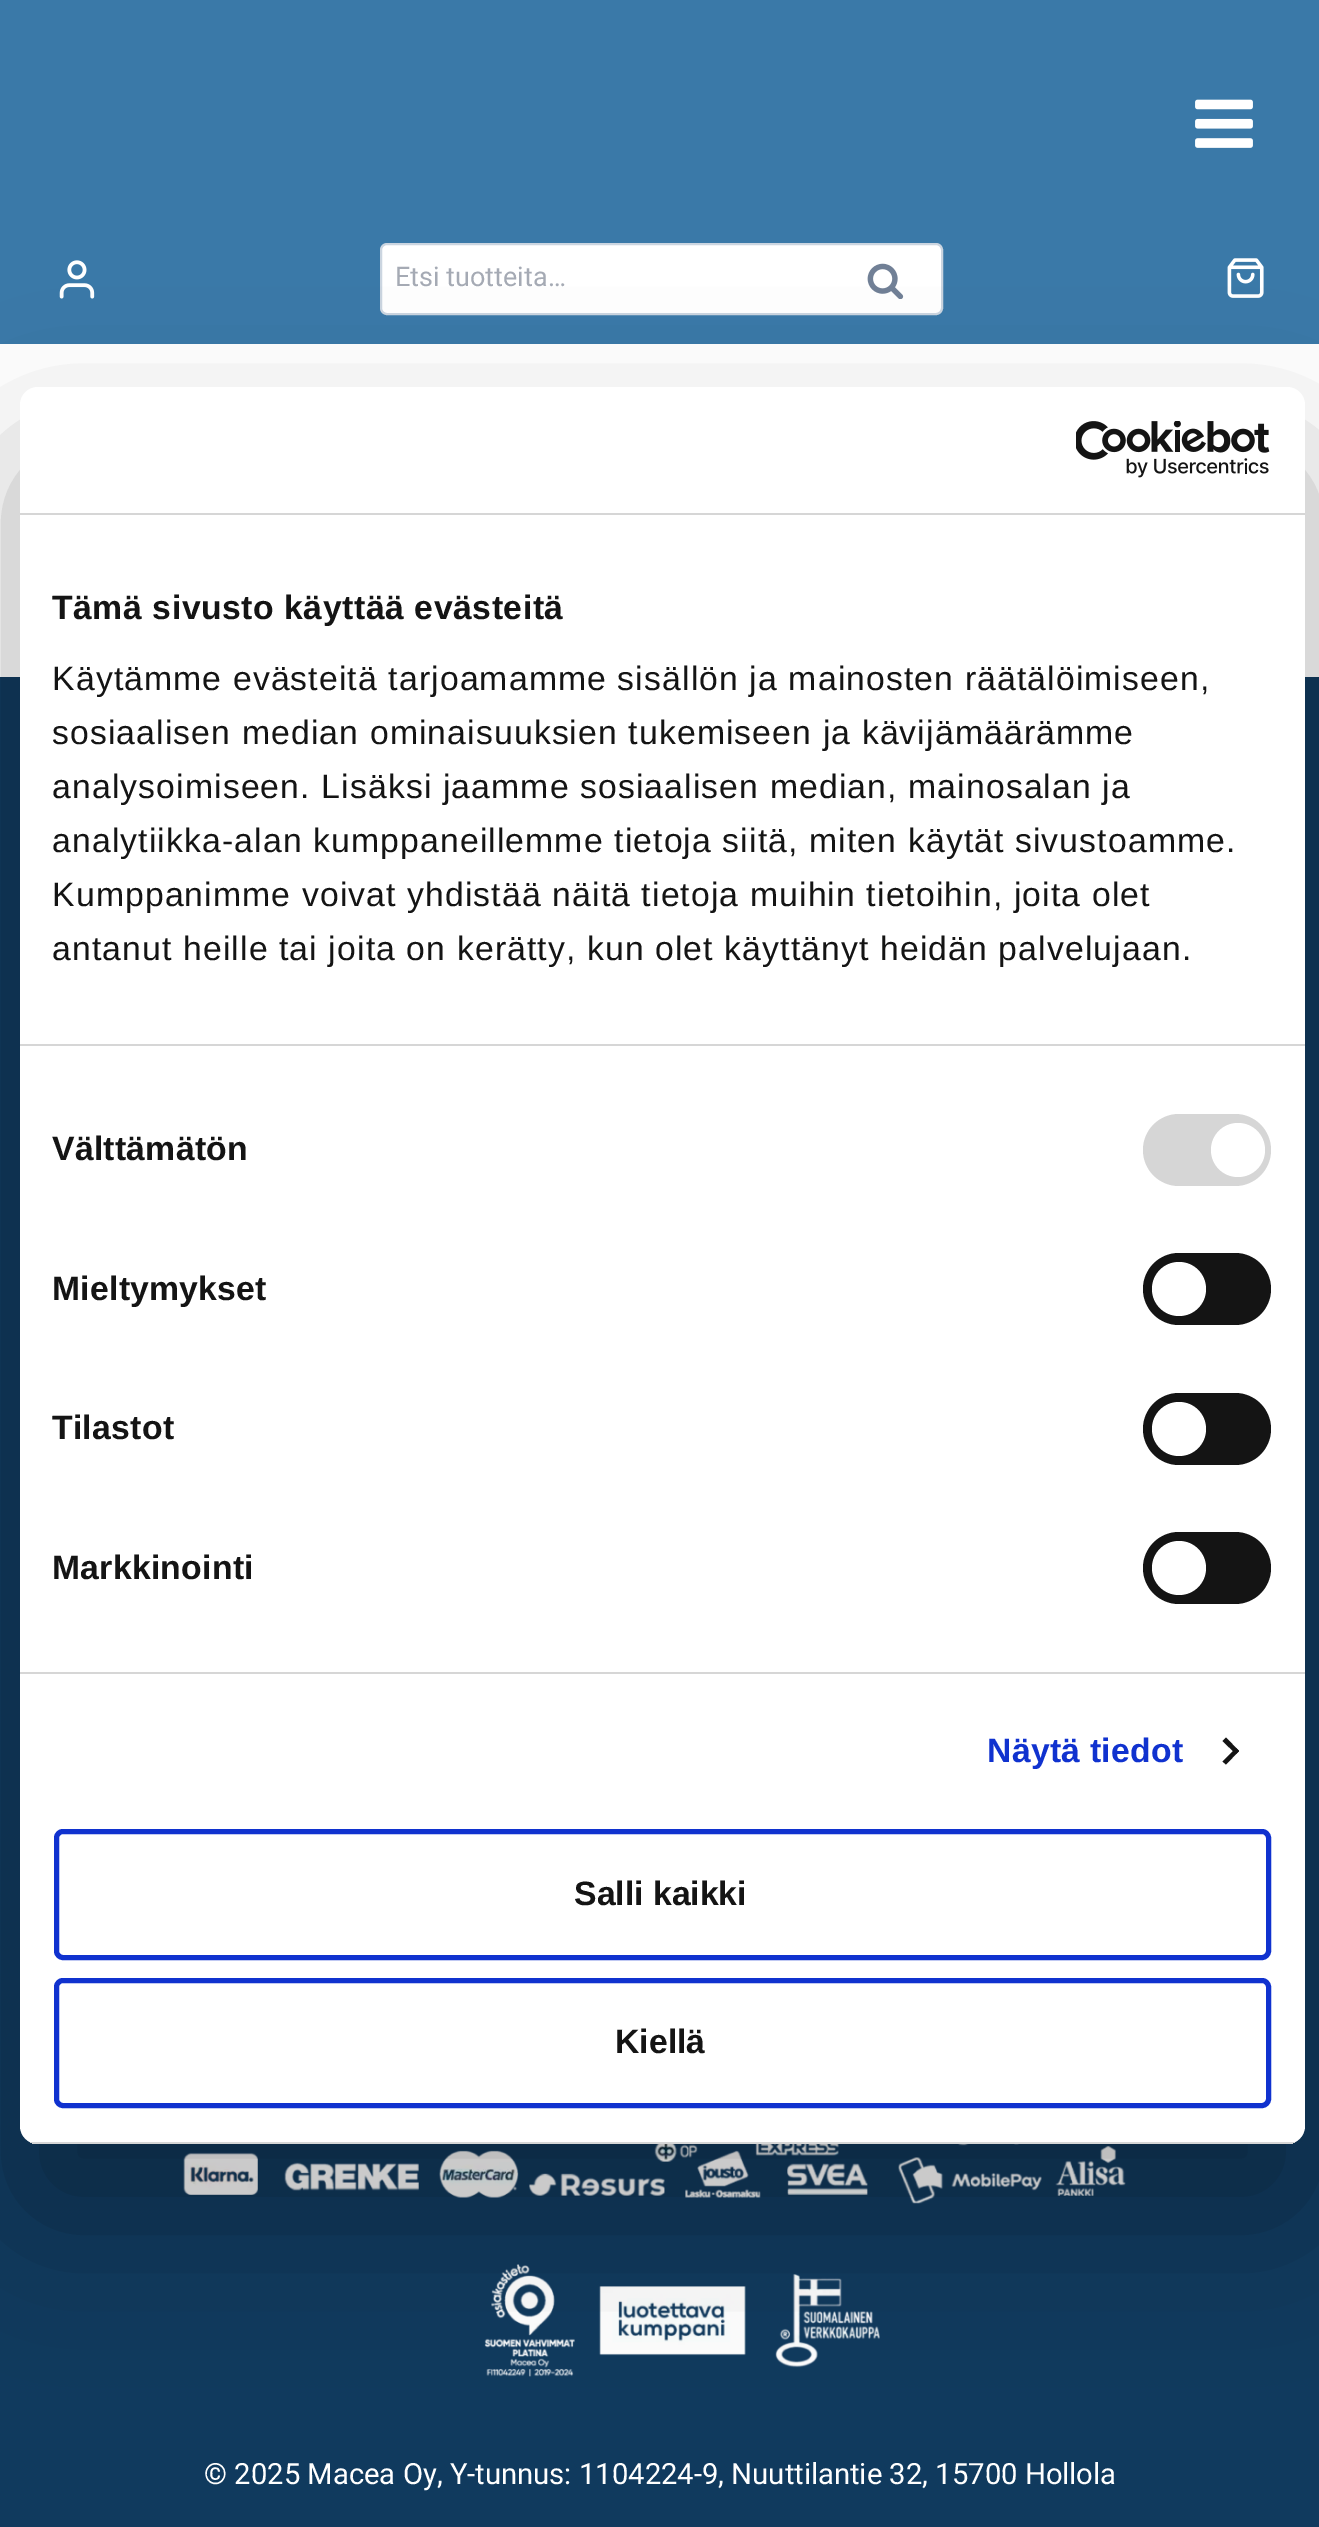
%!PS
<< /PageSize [1319 2527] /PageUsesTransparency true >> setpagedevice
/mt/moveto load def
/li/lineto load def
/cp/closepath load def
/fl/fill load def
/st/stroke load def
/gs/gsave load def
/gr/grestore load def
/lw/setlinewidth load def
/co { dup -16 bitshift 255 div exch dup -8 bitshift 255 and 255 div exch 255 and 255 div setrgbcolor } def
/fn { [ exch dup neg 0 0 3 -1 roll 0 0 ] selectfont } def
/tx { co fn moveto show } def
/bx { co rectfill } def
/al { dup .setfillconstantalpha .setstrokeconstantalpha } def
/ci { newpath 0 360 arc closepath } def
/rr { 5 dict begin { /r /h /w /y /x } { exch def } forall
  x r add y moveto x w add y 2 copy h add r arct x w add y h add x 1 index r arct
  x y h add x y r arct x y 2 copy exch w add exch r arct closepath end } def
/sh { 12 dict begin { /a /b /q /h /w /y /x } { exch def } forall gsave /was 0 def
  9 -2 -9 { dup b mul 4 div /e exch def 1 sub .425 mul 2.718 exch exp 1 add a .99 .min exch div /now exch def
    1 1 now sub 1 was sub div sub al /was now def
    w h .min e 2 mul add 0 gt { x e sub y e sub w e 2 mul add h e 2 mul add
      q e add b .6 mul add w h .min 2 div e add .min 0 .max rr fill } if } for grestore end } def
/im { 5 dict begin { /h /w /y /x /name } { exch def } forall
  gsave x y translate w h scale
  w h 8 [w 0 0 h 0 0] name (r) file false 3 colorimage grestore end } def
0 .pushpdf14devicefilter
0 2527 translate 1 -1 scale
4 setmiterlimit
0 0 1319 2527 16#FFFFFF bx
0 0 1319 344 16#3A79A8 bx
(media/1.raw) 1195 99 58 49 im
(media/2.raw) 59 260 36 39 im
16#FFFFFF co
381 244 561 70 6 rr gs fl gr
16#CBD5E0 co
2 lw
st
(media/3.raw) 867 263 37 36 im
(media/4.raw) 1227 258 37 40 im
0 677 1319 1850 16#103A5E bx
(media/5.raw) 183 2144 943 233 im
16#000000 co
20 459 1285 1757 18 76.5 .3 sh
16#FFFFFF co
20 387 1285 1757 18 rr fl
20 513 1285 2 16#D6D6D6 bx
(media/6.raw) 1076 421 194 57 im
20 1044 1285 2 16#D6D6D6 bx
20 1672 1285 2 16#D6D6D6 bx
1143 1114 128 72 36 rr fl
16#FFFFFF co
1238 1150 27 ci fl
16#141414 co
1143 1253 128 72 36 rr fl
16#FFFFFF co
1179 1289 27 ci fl
16#141414 co
1143 1393 128 72 36 rr fl
16#FFFFFF co
1179 1429 27 ci fl
16#141414 co
1143 1532 128 72 36 rr fl
16#FFFFFF co
1179 1568 27 ci fl
16#141414 co
1226 1737.5 mt 1239 1751 li 1236 1754 li 1222.5 1741 li cp fl
1236 1748 mt 1239 1751 li 1226 1764.5 li 1222.5 1761.5 li cp fl
gs
20 387 1285 1757 18 rr clip newpath
30 2142 1265 2 16#D6D6D6 bx
gr
16#1032CF co
5 lw
56.5 1831.5 1212 126 6.5 rr st
56.5 1980.5 1212 125 6.5 rr st
(Etsi tuotteita…) 395 286 /Roboto-Regular 27 16#A5AAB4 tx
(© 2025 Macea Oy, Y-tunnus: 1104224-9, Nuuttilantie 32, 15700 Hollola) 204 2484 /Roboto-Regular 29.25 16#FFFFFF tx
/LiberationSans-Bold 33.75 fn
16#141414 co
52 619 mt .55 0 (Tämä sivusto käyttää evästeitä) ashow
/LiberationSans-Regular 33.75 fn
52 690 mt 1.12 0 (Käytämme evästeitä tarjoamamme sisällön ja mainosten räätälöimiseen,) ashow
52 744 mt 1.12 0 (sosiaalisen median ominaisuuksien tukemiseen ja kävijämäärämme) ashow
52 798 mt 1.12 0 (analysoimiseen. Lisäksi jaamme sosiaalisen median, mainosalan ja) ashow
52 852 mt 1.12 0 (analytiikka-alan kumppaneillemme tietoja siitä, miten käytät sivustoamme.) ashow
52 906 mt 1.12 0 (Kumppanimme voivat yhdistää näitä tietoja muihin tietoihin, joita olet) ashow
52 960 mt 1.12 0 (antanut heille tai joita on kerätty, kun olet käyttänyt heidän palvelujaan.) ashow
/LiberationSans-Bold 33.75 fn
52 1160 mt .25 0 (Välttämätön) ashow
52 1300 mt .25 0 (Mieltymykset) ashow
52 1439 mt .25 0 (Tilastot) ashow
52 1579 mt .25 0 (Markkinointi) ashow
16#1032CF co
987 1762 mt .25 0 (Näytä tiedot) ashow
(Salli kaikki) 574 1905 /LiberationSans-Bold 33.75 16#141414 tx
(Kiellä) 615 2053 /LiberationSans-Bold 33.75 16#141414 tx
.poppdf14devicefilter showpage
